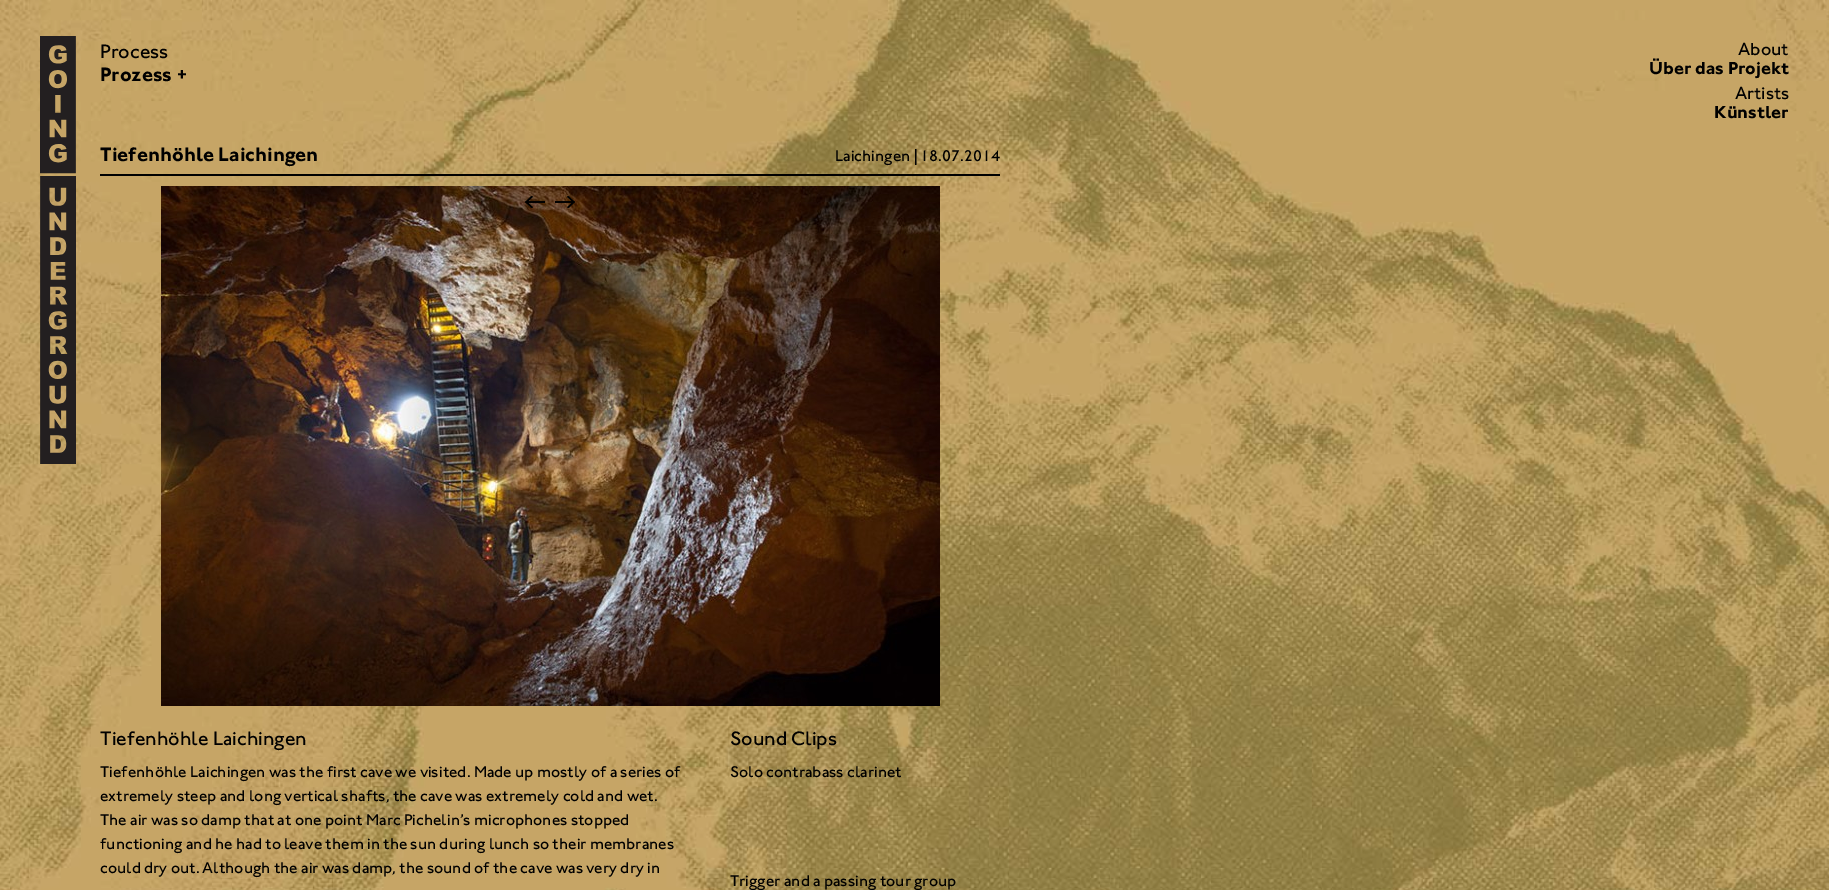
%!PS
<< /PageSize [1829 890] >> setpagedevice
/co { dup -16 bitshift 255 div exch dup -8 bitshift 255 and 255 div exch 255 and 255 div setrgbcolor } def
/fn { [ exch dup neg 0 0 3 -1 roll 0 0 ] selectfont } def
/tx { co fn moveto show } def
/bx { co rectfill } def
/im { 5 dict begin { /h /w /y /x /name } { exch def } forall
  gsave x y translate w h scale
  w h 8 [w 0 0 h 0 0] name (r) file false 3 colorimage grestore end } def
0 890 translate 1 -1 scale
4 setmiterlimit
0 0 1829 890 16#FFFFFF bx
(media/1.raw) 0 0 1829 890 im
(media/2.raw) 40 36 36 428 im
100 174 900 2 16#000000 bx
(media/3.raw) 161 186 779 520 im
(media/4.raw) 525 196 20 12 im
(media/5.raw) 555 196 20 12 im
(Process) 100 58 /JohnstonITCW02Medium-Medium 20 16#000000 tx
(Prozess +) 100 81 /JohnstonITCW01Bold-Bold 20 16#000000 tx
(About) 1738 55 /JohnstonITCW02Medium-Medium 18 16#000000 tx
(Über das Projekt) 1649 74 /JohnstonITCW01Bold-Bold 18 16#000000 tx
(Artists) 1735 99 /JohnstonITCW02Medium-Medium 18 16#000000 tx
(Künstler) 1714 118 /JohnstonITCW01Bold-Bold 18 16#000000 tx
(Tiefenhöhle Laichingen) 100 161 /JohnstonITCW01Bold-Bold 20 16#000000 tx
(Laichingen | 18.07.2014) 835 161 /JohnstonITCW02Medium-Medium 16 16#000000 tx
(Tiefenhöhle Laichingen) 100 745 /JohnstonITCW02Medium-Medium 20 16#000000 tx
(Tiefenhöhle Laichingen was the first cave we visited. Made up mostly of a series of) 100 777 /JohnstonITCW02Medium-Medium 16 16#000000 tx
(extremely steep and long vertical shafts, the cave was extremely cold and wet.) 100 801 /JohnstonITCW02Medium-Medium 16 16#000000 tx
(The air was so damp that at one point Marc Pichelin’s microphones stopped) 100 825 /JohnstonITCW02Medium-Medium 16 16#000000 tx
(functioning and he had to leave them in the sun during lunch so their membranes) 100 849 /JohnstonITCW02Medium-Medium 16 16#000000 tx
(could dry out. Although the air was damp, the sound of the cave was very dry in) 100 873 /JohnstonITCW02Medium-Medium 16 16#000000 tx
(Sound Clips) 730 745 /JohnstonITCW02Medium-Medium 20 16#000000 tx
(Solo contrabass clarinet) 730 777 /JohnstonITCW02Medium-Medium 16 16#000000 tx
(Trigger and a passing tour group) 730 886 /JohnstonITCW02Medium-Medium 16 16#000000 tx
showpage
